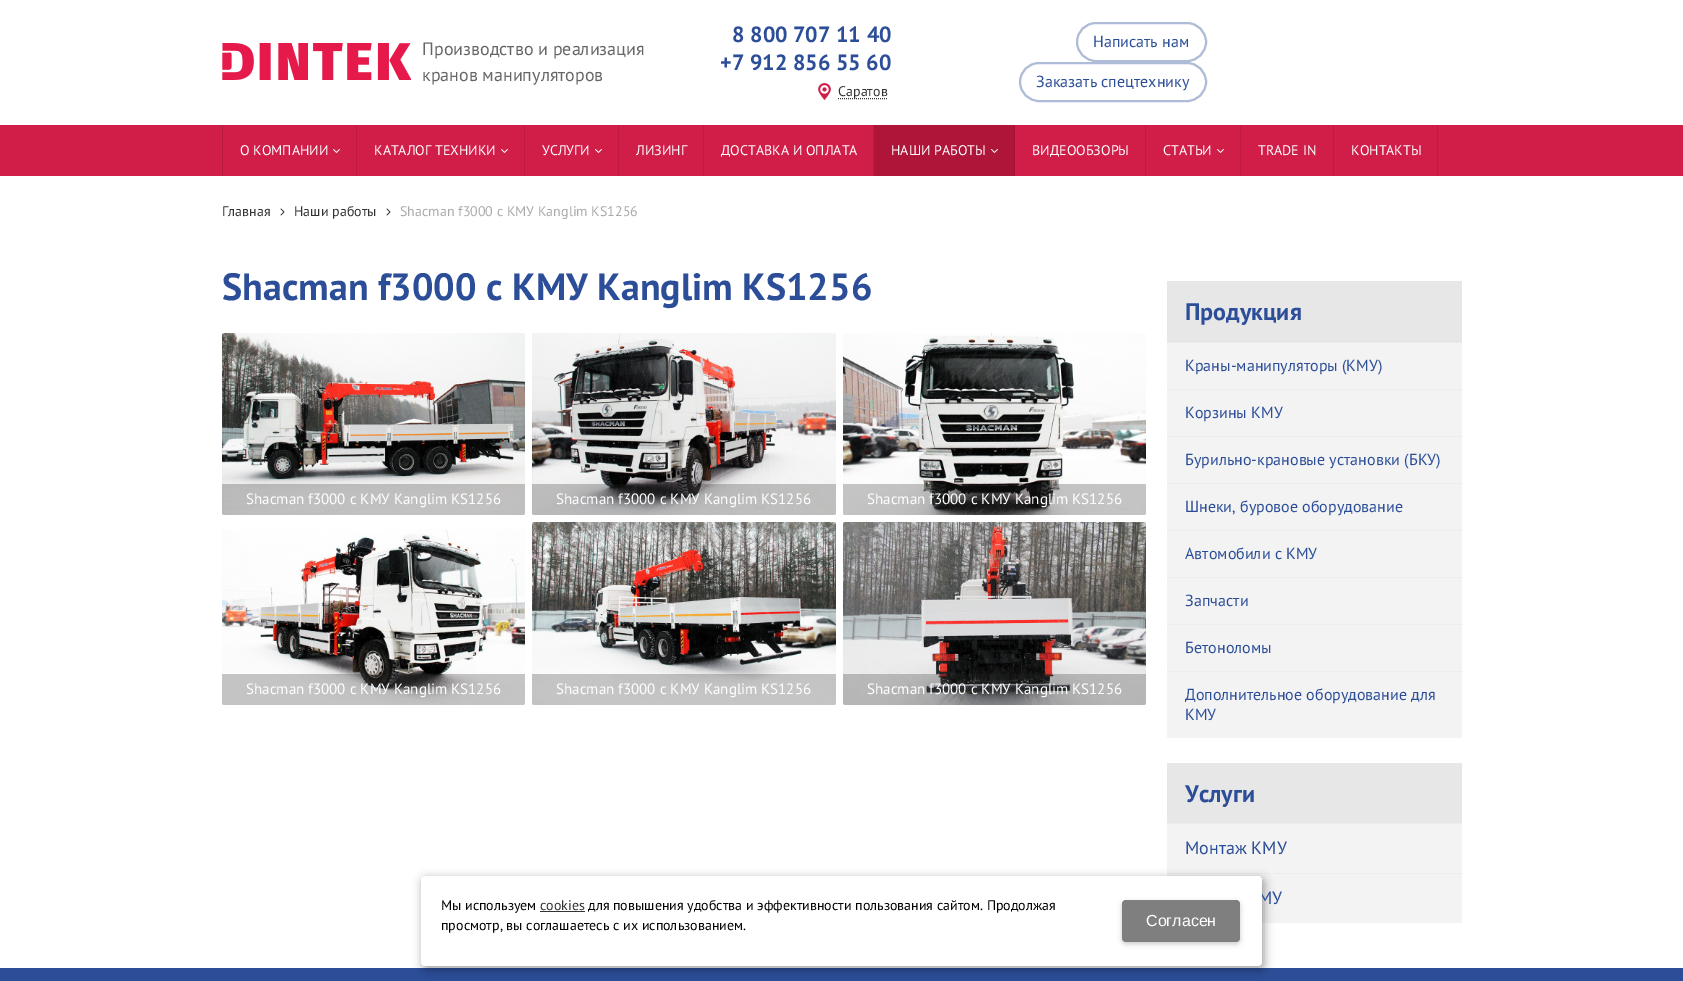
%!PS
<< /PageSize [1683 981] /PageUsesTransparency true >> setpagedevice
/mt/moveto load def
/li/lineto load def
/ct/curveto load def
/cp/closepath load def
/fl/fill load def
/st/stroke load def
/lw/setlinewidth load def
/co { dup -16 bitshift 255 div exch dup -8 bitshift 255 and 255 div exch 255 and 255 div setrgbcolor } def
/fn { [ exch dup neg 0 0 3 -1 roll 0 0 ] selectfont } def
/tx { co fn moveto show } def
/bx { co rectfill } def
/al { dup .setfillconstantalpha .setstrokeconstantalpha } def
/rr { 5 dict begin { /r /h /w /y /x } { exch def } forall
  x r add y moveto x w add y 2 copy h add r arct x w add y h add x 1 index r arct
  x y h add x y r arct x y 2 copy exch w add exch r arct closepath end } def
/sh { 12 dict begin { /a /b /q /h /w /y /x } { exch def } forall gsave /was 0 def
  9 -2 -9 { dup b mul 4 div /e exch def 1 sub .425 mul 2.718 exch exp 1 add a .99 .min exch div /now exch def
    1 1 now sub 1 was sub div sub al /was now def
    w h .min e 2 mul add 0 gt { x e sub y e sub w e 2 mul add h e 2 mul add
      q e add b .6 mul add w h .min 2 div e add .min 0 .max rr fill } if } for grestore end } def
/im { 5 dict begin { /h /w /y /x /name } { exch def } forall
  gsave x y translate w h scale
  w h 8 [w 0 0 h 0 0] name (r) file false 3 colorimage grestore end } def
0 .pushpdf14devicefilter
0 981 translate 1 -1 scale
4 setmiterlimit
0 0 1683 981 16#FFFFFF bx
(media/1.raw) 222 43 189 37 im
(media/2.raw) 818 83 13 17 im
16#333333 co
[1 1] 0 setdash
838 98.5 mt 888 98.5 li st
16#AFBCD8 co
2 lw
[] 0 setdash
1077 23 129 38 19 rr st
1020 63 186 38 19 rr st
0 125 1683 51 16#D01E49 bx
222 125 1 51 16#B51A40 bx
356 125 1 51 16#BC1A41 bx
(media/3.raw) 333 149 7 4 im
524 125 1 51 16#BC1A41 bx
(media/3.raw) 501 149 7 4 im
618 125 1 51 16#BC1A41 bx
(media/3.raw) 595 149 7 4 im
703 125 1 51 16#BC1A41 bx
873 125 1 51 16#BC1A41 bx
874 125 140 51 16#AF1439 bx
1014 125 1 51 16#A71437 bx
(media/4.raw) 991 149 7 4 im
1145 125 1 51 16#BC1A41 bx
1240 125 1 51 16#BC1A41 bx
(media/3.raw) 1217 149 7 4 im
1333 125 1 51 16#BC1A41 bx
1437 125 1 51 16#BC1A41 bx
(media/5.raw) 280 208 5 8 im
(media/5.raw) 386 208 5 8 im
(media/6.raw) 222 333 303 182 im
0.26 al
16#252525 co
222 484 mt 525 484 li 525 513 li 525 514 524 515 523 515 ct 224 515 li 223 515 222 514 222 513 ct cp fl
1 al
(media/7.raw) 532 333 304 182 im
0.26 al
532 484 mt 836 484 li 836 513 li 836 514 835 515 834 515 ct 534 515 li 533 515 532 514 532 513 ct cp fl
1 al
(media/8.raw) 843 333 303 182 im
0.26 al
843 484 mt 1146 484 li 1146 513 li 1146 514 1145 515 1144 515 ct 845 515 li 844 515 843 514 843 513 ct cp fl
1 al
(media/9.raw) 222 529 303 176 im
0.26 al
222 674 mt 525 674 li 525 703 li 525 704 524 705 523 705 ct 224 705 li 223 705 222 704 222 703 ct cp fl
1 al
(media/10.raw) 532 522 304 183 im
0.26 al
532 674 mt 836 674 li 836 703 li 836 704 835 705 834 705 ct 534 705 li 533 705 532 704 532 703 ct cp fl
1 al
(media/11.raw) 843 522 303 183 im
0.26 al
843 674 mt 1146 674 li 1146 703 li 1146 704 1145 705 1144 705 ct 845 705 li 844 705 843 704 843 703 ct cp fl
1 al
1167 343 295 395 16#F3F3F3 bx
1167 281 295 60 16#E7E7E7 bx
1167 341 295 1 16#E1E1E1 bx
1167 342 295 1 16#EBEEEF bx
1167 389 295 1 16#EBEEEF bx
1167 436 295 1 16#EBEEEF bx
1167 483 295 1 16#EBEEEF bx
1167 530 295 1 16#EBEEEF bx
1167 577 295 1 16#EBEEEF bx
1167 624 295 1 16#EBEEEF bx
1167 671 295 1 16#EBEEEF bx
1167 824 295 99 16#F3F3F3 bx
1167 763 295 60 16#E7E7E7 bx
1167 823 295 1 16#EBEEEF bx
1167 873 295 1 16#EBEEEF bx
0 968 1683 13 16#2C4E98 bx
16#000000 co
423 879 841 90 4 5 .4 sh
(Производство и реализация) 422 55 /PTSans-Regular 18 16#666666 tx
(кранов манипуляторов) 422 81 /PTSans-Regular 18 16#666666 tx
(8 800 707 11 40) 732 42 /PTSans-Bold 22 16#2C4E98 tx
(+7 912 856 55 60) 720 70 /PTSans-Bold 22 16#2C4E98 tx
(Саратов) 838 96 /PTSans-Regular 14 16#333333 tx
(Написать нам) 1093 47 /PTSans-Regular 16 16#2C4E98 tx
(Заказать спецтехнику) 1036 87 /PTSans-Regular 16 16#2C4E98 tx
(О КОМПАНИИ) 240 155 /PTSans-Regular 14 16#FFFFFF tx
(КАТАЛОГ ТЕХНИКИ) 374 155 /PTSans-Regular 14 16#FFFFFF tx
(УСЛУГИ) 542 155 /PTSans-Regular 14 16#FFFFFF tx
(ЛИЗИНГ) 636 155 /PTSans-Regular 14 16#FFFFFF tx
(ДОСТАВКА И ОПЛАТА) 721 155 /PTSans-Regular 14 16#FFFFFF tx
(НАШИ РАБОТЫ) 891 155 /PTSans-Regular 14 16#FFFFFF tx
(ВИДЕООБЗОРЫ) 1032 155 /PTSans-Regular 14 16#FFFFFF tx
(СТАТЬИ) 1163 155 /PTSans-Regular 14 16#FFFFFF tx
(TRADE IN) 1258 155 /PTSans-Regular 14 16#FFFFFF tx
(КОНТАКТЫ) 1351 155 /PTSans-Regular 14 16#FFFFFF tx
(Главная) 222 216 /PTSans-Regular 14 16#333333 tx
(Наши работы) 294 216 /PTSans-Regular 14 16#333333 tx
(Shacman f3000 с КМУ Kanglim KS1256) 400 216 /PTSans-Regular 14 16#AAAAAA tx
(Shacman f3000 с КМУ Kanglim KS1256) 222 300 /PTSans-Bold 38 16#2C4E98 tx
(Shacman f3000 с КМУ Kanglim KS1256) 246 504 /PTSans-Regular 15 16#FFFFFF tx
(Shacman f3000 с КМУ Kanglim KS1256) 556 504 /PTSans-Regular 15 16#FFFFFF tx
(Shacman f3000 с КМУ Kanglim KS1256) 867 504 /PTSans-Regular 15 16#FFFFFF tx
(Shacman f3000 с КМУ Kanglim KS1256) 246 694 /PTSans-Regular 15 16#FFFFFF tx
(Shacman f3000 с КМУ Kanglim KS1256) 556 694 /PTSans-Regular 15 16#FFFFFF tx
(Shacman f3000 с КМУ Kanglim KS1256) 867 694 /PTSans-Regular 15 16#FFFFFF tx
(Продукция) 1185 320 /PTSans-Bold 24 16#2C4E98 tx
(Краны-манипуляторы \(КМУ\)) 1185 371 /PTSans-Regular 16 16#2C4E98 tx
(Корзины КМУ) 1185 418 /PTSans-Regular 16 16#2C4E98 tx
(Бурильно-крановые установки \(БКУ\)) 1185 465 /PTSans-Regular 16 16#2C4E98 tx
(Шнеки, буровое оборудование) 1185 512 /PTSans-Regular 16 16#2C4E98 tx
(Автомобили с КМУ) 1185 559 /PTSans-Regular 16 16#2C4E98 tx
(Запчасти) 1185 606 /PTSans-Regular 16 16#2C4E98 tx
(Бетоноломы) 1185 653 /PTSans-Regular 16 16#2C4E98 tx
(Дополнительное оборудование для) 1185 700 /PTSans-Regular 16 16#2C4E98 tx
(КМУ) 1185 720 /PTSans-Regular 16 16#2C4E98 tx
(Услуги) 1185 802 /PTSans-Bold 24 16#2C4E98 tx
(Монтаж КМУ) 1185 854 /PTSans-Regular 18 16#2C4E98 tx
(МУ) 1258 904 /PTSans-Regular 18 16#2C4E98 tx
16#FFFFFF co
421 876 841 90 4 rr fl
(Мы используем) 441 910 /PTSans-Regular 14 16#000000 tx
(cookies) 540 910 /PTSans-Regular 14 16#333333 tx
540 911 45 1 16#333333 bx
(для повышения удобства и эффективности пользования сайтом. Продолжая) 588 910 /PTSans-Regular 14 16#000000 tx
(просмотр, вы соглашаетесь с их использованием.) 441 930 /PTSans-Regular 14 16#000000 tx
1122 902 118 42 4 2.5 .2 sh
16#7F7F7F co
1122 900 118 42 4 rr fl
(Согласен) 1146 926 /LiberationSans-Regular 16 16#FFFFFF tx
.poppdf14devicefilter showpage
